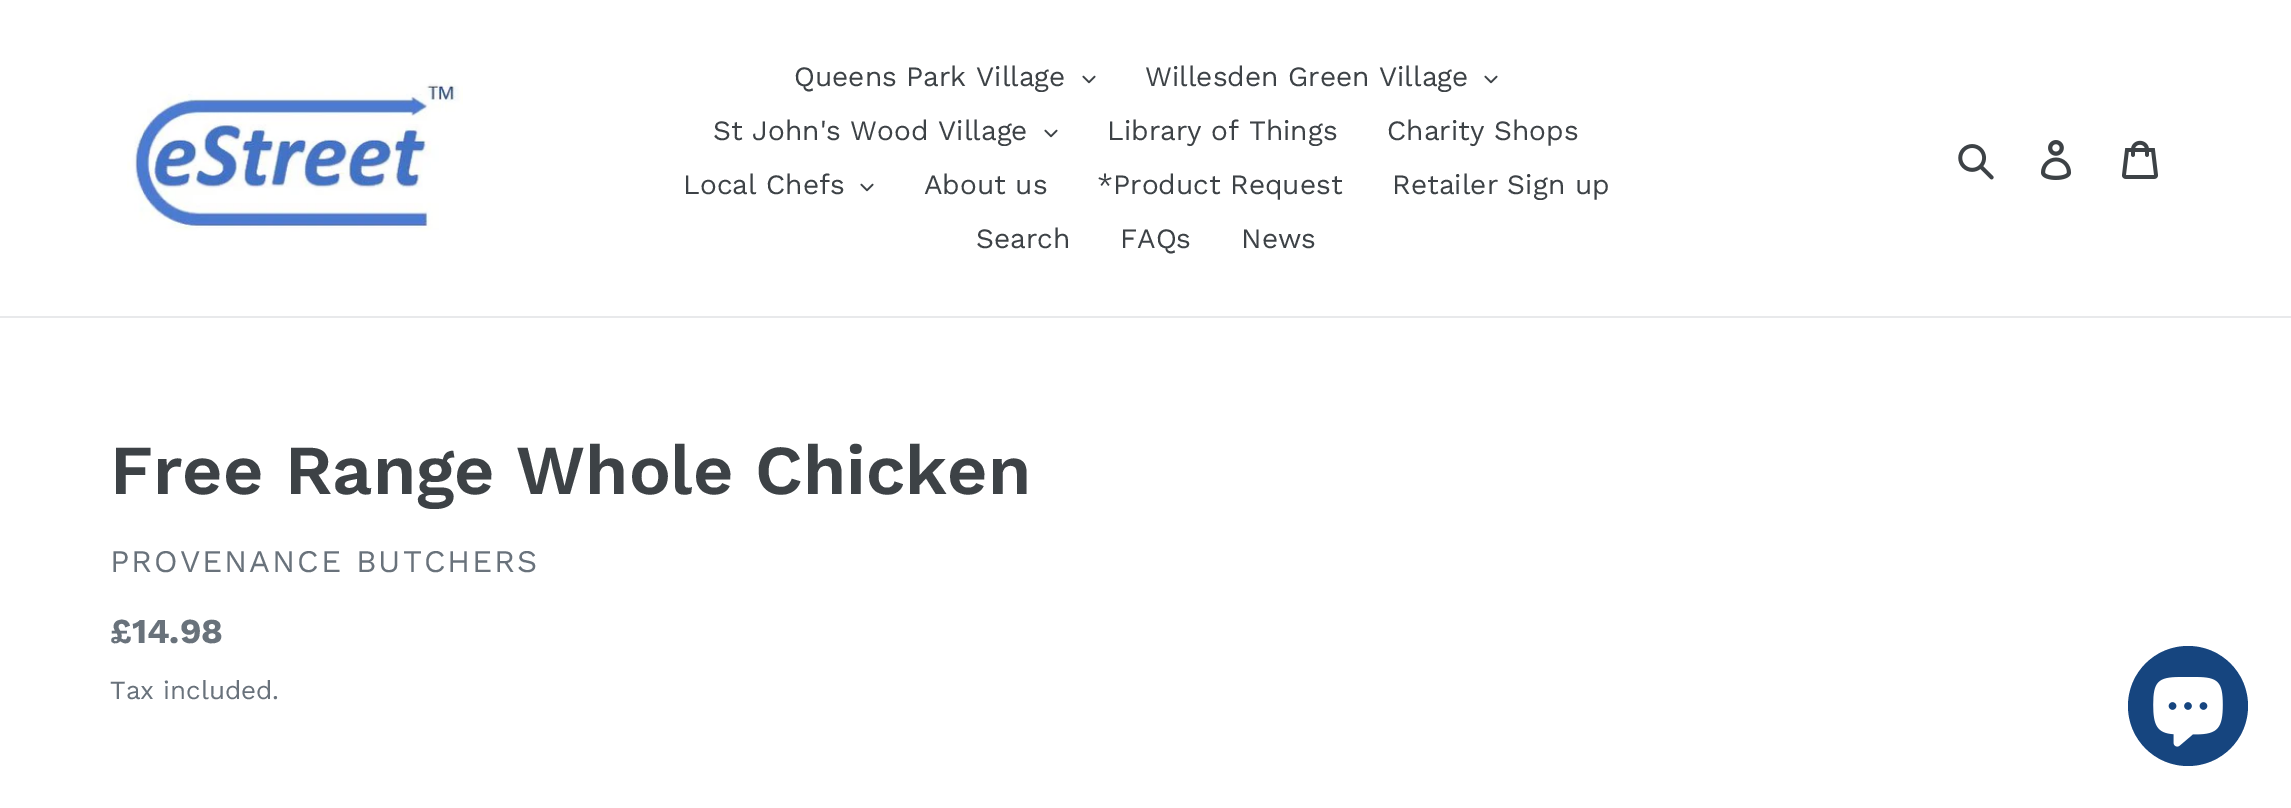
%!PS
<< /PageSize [2291 808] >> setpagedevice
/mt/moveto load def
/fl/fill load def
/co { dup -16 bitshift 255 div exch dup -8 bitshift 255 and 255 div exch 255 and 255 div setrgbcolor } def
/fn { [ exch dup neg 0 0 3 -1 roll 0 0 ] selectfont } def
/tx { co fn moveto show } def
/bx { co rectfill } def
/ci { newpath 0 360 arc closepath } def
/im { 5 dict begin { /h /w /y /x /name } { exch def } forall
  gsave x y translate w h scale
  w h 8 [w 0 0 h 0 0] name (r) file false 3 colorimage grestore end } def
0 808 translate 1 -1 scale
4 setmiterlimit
0 0 2291 808 16#FFFFFF bx
0 316 2291 2 16#E8E9EB bx
(media/1.raw) 127 80 336 152 im
(media/2.raw) 1082 75 14 9 im
(media/2.raw) 1484 75 14 9 im
(media/2.raw) 1044 129 14 9 im
(media/2.raw) 860 183 14 9 im
(media/3.raw) 1958 144 36 36 im
(media/4.raw) 2041 140 31 40 im
(media/5.raw) 2122 140 36 39 im
16#16457F co
2188 706 60 ci fl
(media/6.raw) 2153 677 70 70 im
(Queens Park Village) 794 86 /WorkSans-Regular 28 16#3D4246 tx
(Willesden Green Village) 1145 86 /WorkSans-Regular 28 16#3D4246 tx
(St John's Wood Village) 713 140 /WorkSans-Regular 28 16#3D4246 tx
(Library of Things) 1107 140 /WorkSans-Regular 28 16#3D4246 tx
(Charity Shops) 1387 140 /WorkSans-Regular 28 16#3D4246 tx
(Local Chefs) 683 194 /WorkSans-Regular 28 16#3D4246 tx
(About us) 924 194 /WorkSans-Regular 28 16#3D4246 tx
(*Product Request) 1097 194 /WorkSans-Regular 28 16#3D4246 tx
(Retailer Sign up) 1392 194 /WorkSans-Regular 28 16#3D4246 tx
(Search) 976 248 /WorkSans-Regular 28 16#3D4246 tx
(FAQs) 1120 248 /WorkSans-Regular 28 16#3D4246 tx
(News) 1241 248 /WorkSans-Regular 28 16#3D4246 tx
(Free Range Whole Chicken) 110 494 /WorkSans-SemiBold 70 16#3D4246 tx
/WorkSans-Regular 31.5 fn
16#69727B co
110 572 mt 2 0 (PROVENANCE BUTCHERS) ashow
(£14.98) 110 643 /WorkSans-Bold 35 16#69727B tx
(Tax included.) 110 699 /WorkSans-Regular 26 16#69727B tx
showpage
